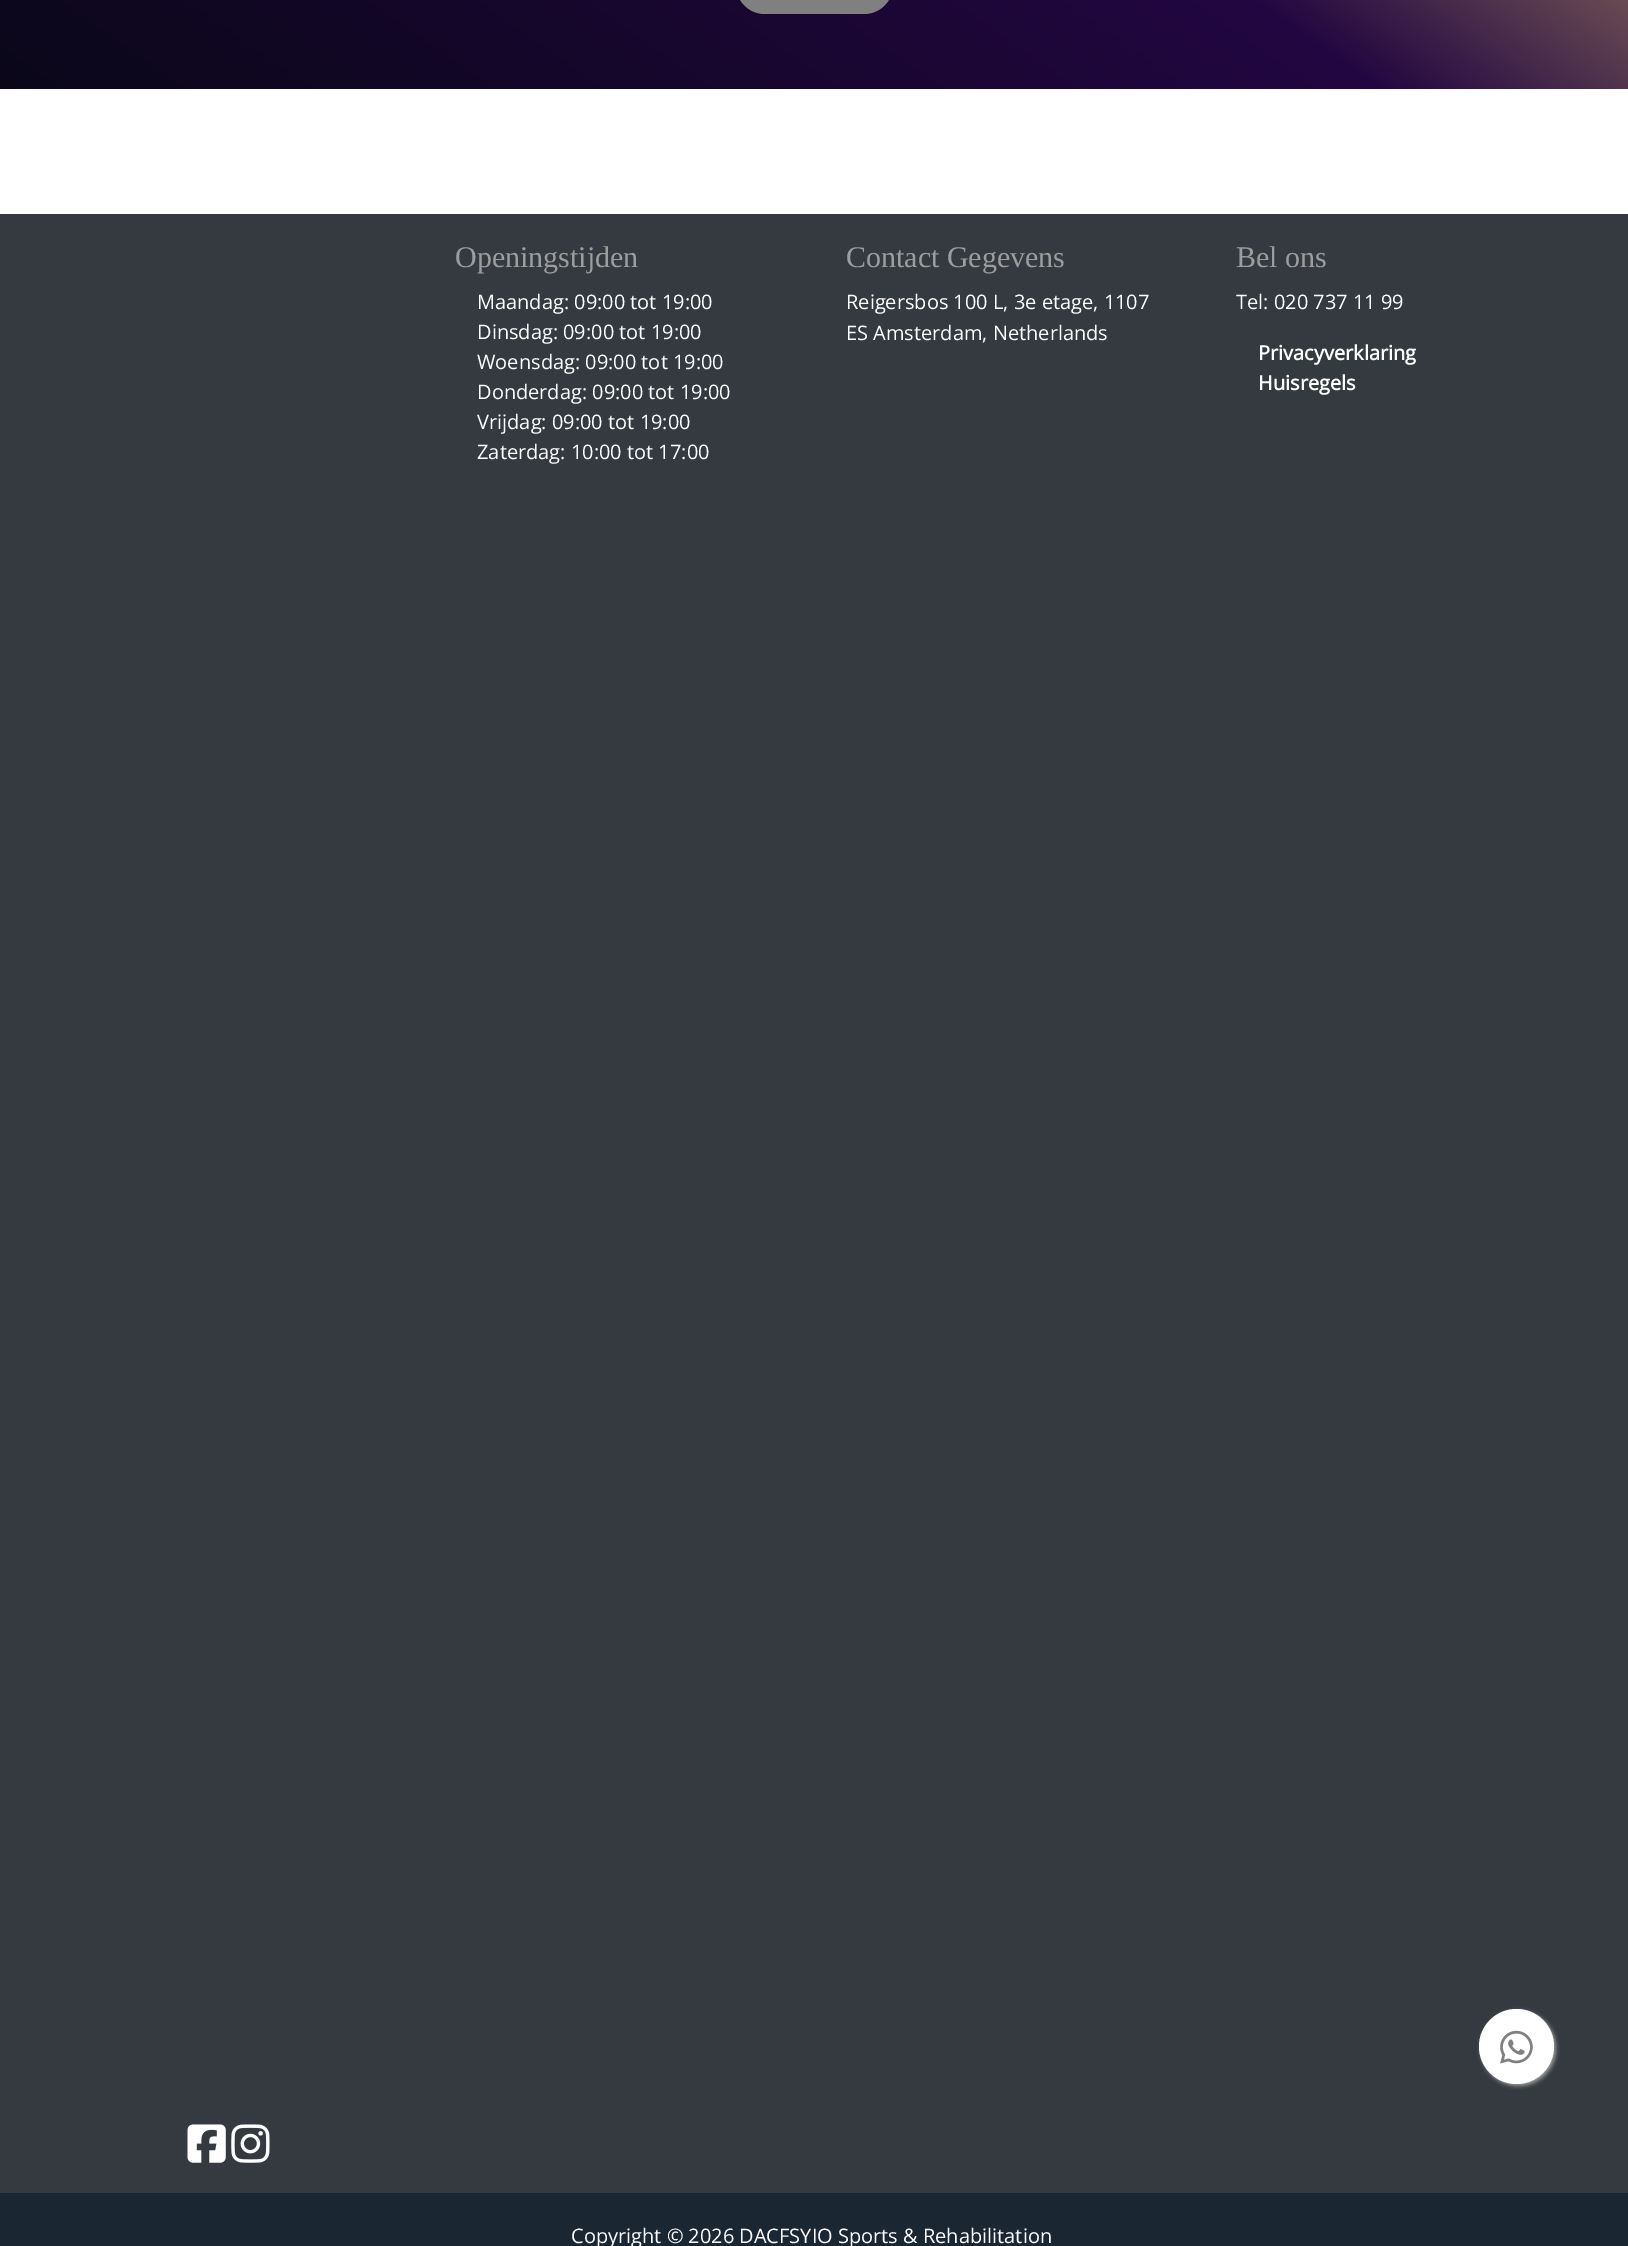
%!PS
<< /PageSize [1628 2246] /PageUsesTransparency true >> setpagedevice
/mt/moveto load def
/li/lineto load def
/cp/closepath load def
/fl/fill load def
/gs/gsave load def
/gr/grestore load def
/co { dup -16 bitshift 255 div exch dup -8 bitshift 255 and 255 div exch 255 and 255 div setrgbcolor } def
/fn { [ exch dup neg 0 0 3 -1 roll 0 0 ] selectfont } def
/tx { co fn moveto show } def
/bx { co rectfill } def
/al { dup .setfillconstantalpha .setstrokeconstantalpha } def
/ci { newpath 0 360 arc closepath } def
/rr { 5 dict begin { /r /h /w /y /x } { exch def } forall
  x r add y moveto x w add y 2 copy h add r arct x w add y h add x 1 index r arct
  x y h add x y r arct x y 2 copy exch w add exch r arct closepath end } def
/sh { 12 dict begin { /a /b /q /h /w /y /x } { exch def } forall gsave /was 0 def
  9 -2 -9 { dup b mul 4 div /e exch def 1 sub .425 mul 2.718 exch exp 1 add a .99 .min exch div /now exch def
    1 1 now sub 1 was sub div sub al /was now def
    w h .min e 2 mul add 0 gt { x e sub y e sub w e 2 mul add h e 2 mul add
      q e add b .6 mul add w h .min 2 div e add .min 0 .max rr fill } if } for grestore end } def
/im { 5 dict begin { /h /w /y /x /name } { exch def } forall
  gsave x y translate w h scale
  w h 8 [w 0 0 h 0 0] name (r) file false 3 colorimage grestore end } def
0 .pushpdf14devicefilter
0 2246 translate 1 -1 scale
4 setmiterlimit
0 0 1628 2246 16#FFFFFF bx
gs 0 0 mt 1628 0 li 1628 89 li 0 89 li cp clip newpath
<< /ShadingType 2 /ColorSpace /DeviceRGB /Coords [460 411 1169 -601] /Extend [true true] /Function << /FunctionType 3 /Domain [0 1] /Functions [<< /FunctionType 2 /Domain [0 1] /C0 [.043 .027 .098] /C1 [.133 .024 .255] /N 1 >> << /FunctionType 2 /Domain [0 1] /C0 [.133 .024 .255] /C1 [.675 .553 .392] /N 1 >> << /FunctionType 2 /Domain [0 1] /C0 [.675 .553 .392] /C1 [.675 .553 .392] /N 1 >>] /Bounds [.64 .98] /Encode [0 1 0 1 0 1] >> >> shfill gr
16#808080 co
736 -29 157 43 29 rr fl
0 214 1628 1979 16#343A40 bx
(media/1.raw) 187 2124 39 39 im
(media/2.raw) 231 2124 39 39 im
0 2193 1628 53 16#1B2633 bx
16#999999 co
1481 2011 75 75 37.5 2 1 sh
16#FFFFFF co
1516.5 2046.5 37.5 ci fl
(media/3.raw) 1500 2030 33 34 im
(Openingstijden) 455 267 /LiberationSerif-Regular 30 16#9D9D9D tx
(Maandag: 09:00 tot 19:00) 477 309 /OpenSans-Regular 20 16#FFFFFF tx
(Dinsdag: 09:00 tot 19:00) 477 339 /OpenSans-Regular 20 16#FFFFFF tx
(Woensdag: 09:00 tot 19:00) 477 369 /OpenSans-Regular 20 16#FFFFFF tx
(Donderdag: 09:00 tot 19:00) 477 399 /OpenSans-Regular 20 16#FFFFFF tx
(Vrijdag: 09:00 tot 19:00) 477 429 /OpenSans-Regular 20 16#FFFFFF tx
(Zaterdag: 10:00 tot 17:00) 477 459 /OpenSans-Regular 20 16#FFFFFF tx
(Contact Gegevens) 846 267 /LiberationSerif-Regular 30 16#9D9D9D tx
(Reigersbos 100 L, 3e etage, 1107) 846 309 /OpenSans-Regular 20 16#FFFFFF tx
(ES Amsterdam, Netherlands) 846 340 /OpenSans-Regular 20 16#FFFFFF tx
(Bel ons) 1236 267 /LiberationSerif-Regular 30 16#9D9D9D tx
(Tel: 020 737 11 99) 1236 309 /OpenSans-Regular 20 16#FFFFFF tx
(Privacyverklaring) 1258 360 /OpenSans-Bold 20 16#FFFFFF tx
(Huisregels) 1258 390 /OpenSans-Bold 20 16#FFFFFF tx
(Copyright © 2026 DACFSYIO Sports & Rehabilitation) 571 2243 /OpenSans-Regular 20 16#FFFFFF tx
.poppdf14devicefilter showpage
